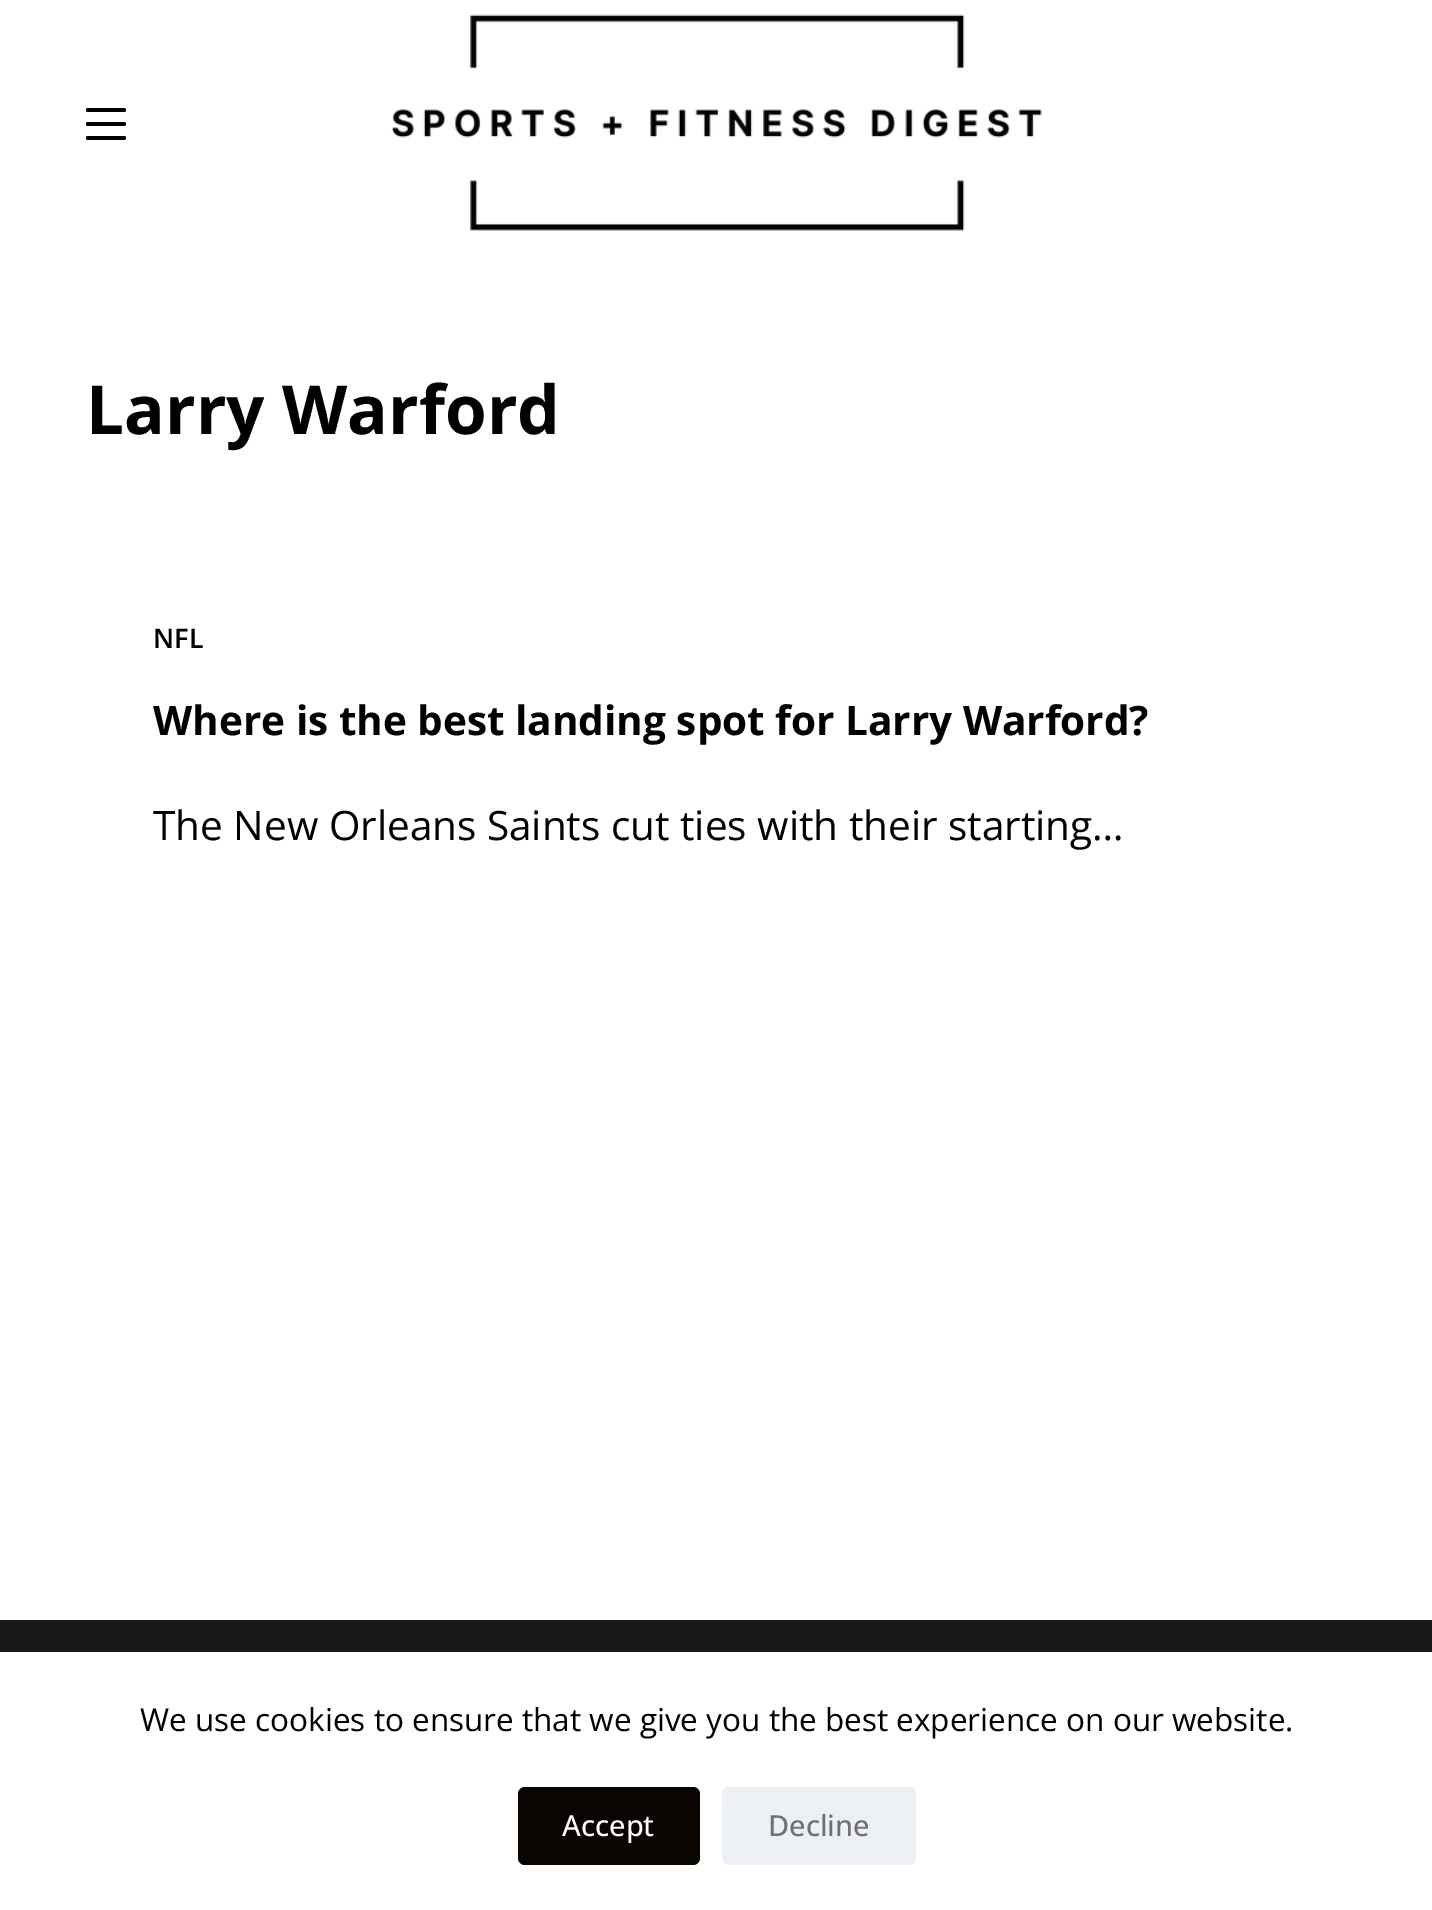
%!PS
<< /PageSize [1432 1910] >> setpagedevice
/fl/fill load def
/co { dup -16 bitshift 255 div exch dup -8 bitshift 255 and 255 div exch 255 and 255 div setrgbcolor } def
/fn { [ exch dup neg 0 0 3 -1 roll 0 0 ] selectfont } def
/tx { co fn moveto show } def
/bx { co rectfill } def
/rr { 5 dict begin { /r /h /w /y /x } { exch def } forall
  x r add y moveto x w add y 2 copy h add r arct x w add y h add x 1 index r arct
  x y h add x y r arct x y 2 copy exch w add exch r arct closepath end } def
/im { 5 dict begin { /h /w /y /x /name } { exch def } forall
  gsave x y translate w h scale
  w h 8 [w 0 0 h 0 0] name (r) file false 3 colorimage grestore end } def
0 1910 translate 1 -1 scale
4 setmiterlimit
0 0 1432 1910 16#181818 bx
0 0 1432 1620 16#FFFFFF bx
16#000000 co
86 108 40 4 2 rr fl
86 122 40 4 2 rr fl
86 136 40 4 2 rr fl
(media/1.raw) 391 14 651 217 im
0 1652 1432 258 16#FFFFFF bx
16#0A0500 co
518 1787 182 78 7 rr fl
16#ECEFF3 co
722 1787 194 78 7 rr fl
(Larry Warford) 86 434 /OpenSans-Bold 67.5 16#000000 tx
(NFL) 153 648 /OpenSans-SemiBold 27 16#000000 tx
(Where is the best landing spot for Larry Warford?) 153 735 /OpenSans-Bold 40.5 16#000000 tx
(The New Orleans Saints cut ties with their starting…) 153 840 /OpenSans-Regular 40.5 16#000000 tx
(We use cookies to ensure that we give you the best experience on our website.) 140 1731 /OpenSans-Regular 31.5 16#000000 tx
(Accept) 562 1836 /OpenSans-Medium 29 16#FFFFFF tx
(Decline) 768 1836 /OpenSans-Medium 29 16#707070 tx
showpage
